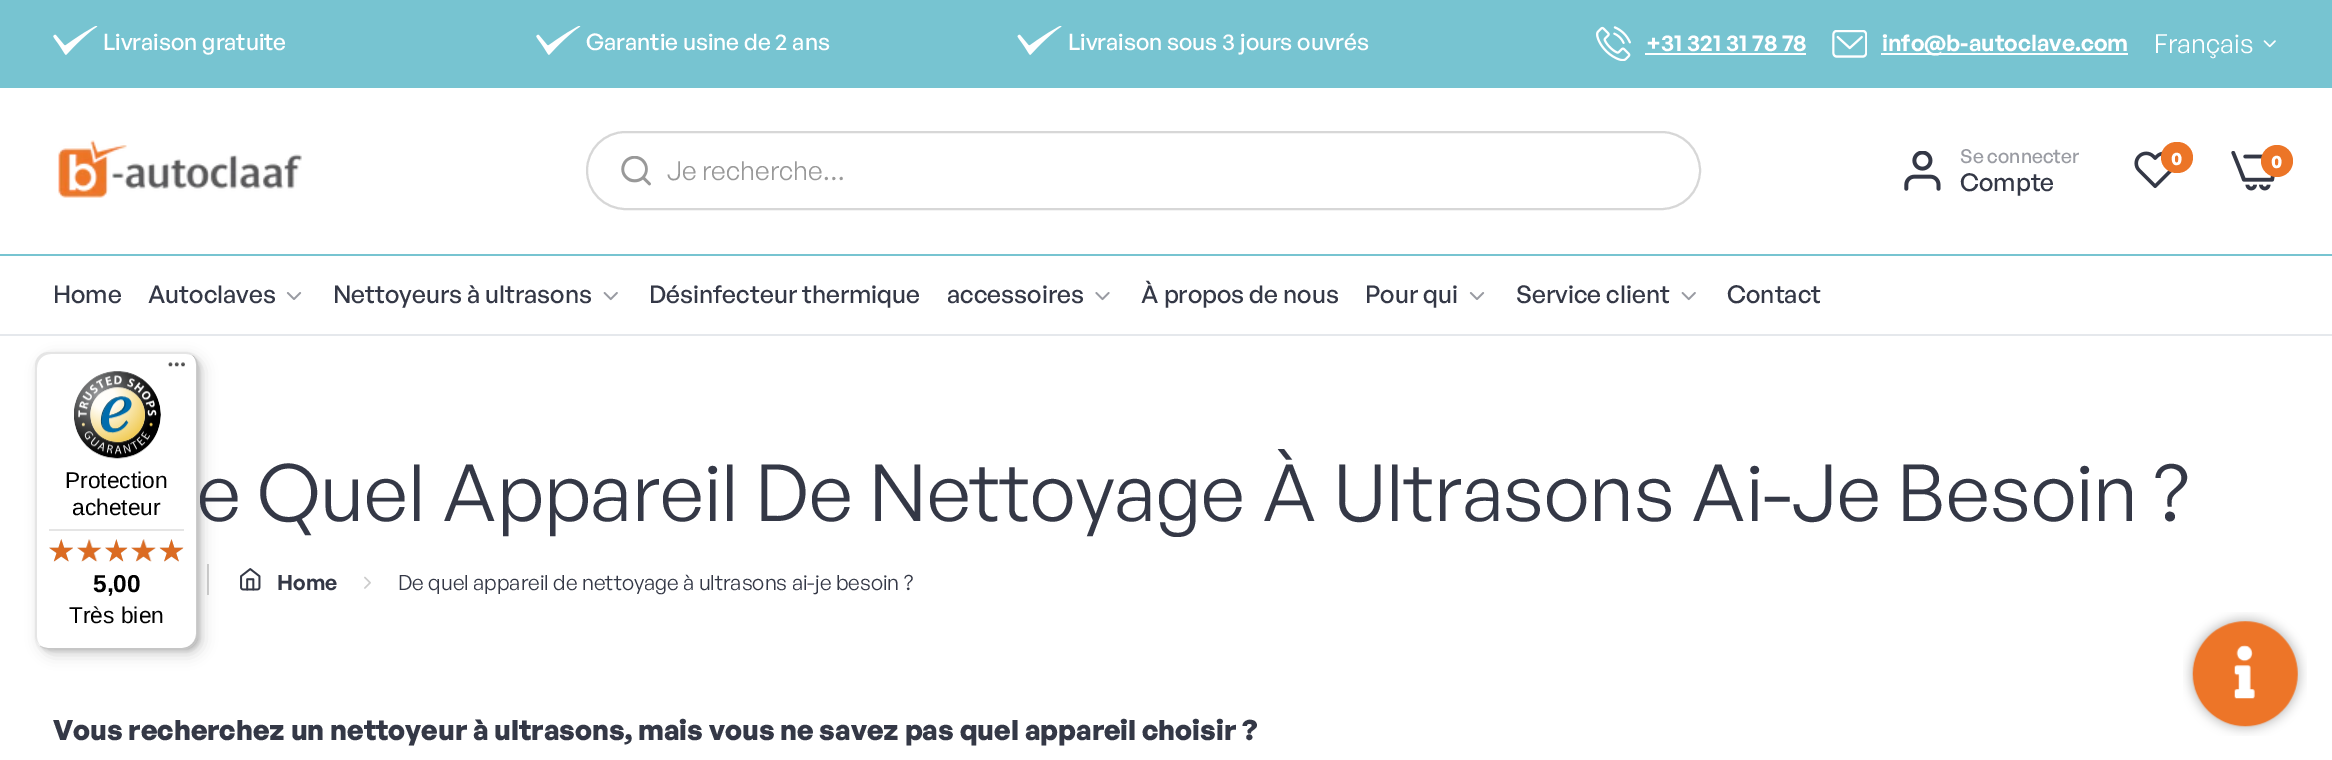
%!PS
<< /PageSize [2332 760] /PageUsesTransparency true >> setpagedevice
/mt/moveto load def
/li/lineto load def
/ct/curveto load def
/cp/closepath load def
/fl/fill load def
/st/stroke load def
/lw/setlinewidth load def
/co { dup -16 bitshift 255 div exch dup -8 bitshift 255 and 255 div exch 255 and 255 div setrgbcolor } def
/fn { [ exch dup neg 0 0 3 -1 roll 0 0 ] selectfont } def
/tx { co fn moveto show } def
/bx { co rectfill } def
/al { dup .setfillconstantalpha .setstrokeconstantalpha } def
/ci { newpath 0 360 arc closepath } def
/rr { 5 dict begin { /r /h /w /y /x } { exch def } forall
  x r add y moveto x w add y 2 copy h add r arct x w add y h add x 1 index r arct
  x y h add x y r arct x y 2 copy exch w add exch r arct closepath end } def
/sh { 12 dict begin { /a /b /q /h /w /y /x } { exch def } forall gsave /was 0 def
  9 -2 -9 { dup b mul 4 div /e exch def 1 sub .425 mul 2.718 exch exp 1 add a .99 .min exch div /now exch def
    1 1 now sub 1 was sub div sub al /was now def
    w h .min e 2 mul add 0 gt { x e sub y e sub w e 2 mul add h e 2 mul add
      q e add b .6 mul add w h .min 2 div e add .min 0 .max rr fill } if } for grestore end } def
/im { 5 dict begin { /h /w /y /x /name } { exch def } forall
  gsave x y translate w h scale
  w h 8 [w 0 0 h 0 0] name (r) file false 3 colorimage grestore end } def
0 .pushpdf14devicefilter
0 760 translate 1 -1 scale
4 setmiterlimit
0 0 2332 760 16#FFFFFF bx
0 334 2332 2 16#E5E8EC bx
0 0 2332 88 16#77C4D1 bx
(media/1.raw) 53 26 45 29 im
(media/1.raw) 536 26 45 29 im
(media/2.raw) 1017 26 45 29 im
(media/3.raw) 1596 26 35 35 im
1645 53 161 2 16#FFFFFF bx
(media/4.raw) 1832 30 35 28 im
1881 53 247 2 16#FFFFFF bx
(media/5.raw) 2263 40 13 8 im
(media/6.raw) 58 140 244 58 im
16#D7D7D7 co
2 lw
587 132 1113 77 38.5 rr st
(media/7.raw) 621 156 30 30 im
(media/8.raw) 1904 151 37 40 im
(media/9.raw) 2134 151 38 38 im
16#EC7527 co
2161 142 32 31 15.5 rr fl
(media/10.raw) 2231 151 44 40 im
2277 161 16 ci fl
0 254 2332 2 16#77C4D1 bx
(media/11.raw) 286 292 16 8 im
(media/12.raw) 603 292 15 9 im
(media/13.raw) 1095 292 15 9 im
(media/11.raw) 1469 292 16 8 im
(media/12.raw) 1681 292 15 9 im
207 564 2 31 16#D1D1D1 bx
(media/14.raw) 240 568 21 23 im
(media/15.raw) 364 576 7 13 im
16#000000 co
40 357 163 298 14 7 .15 sh
37 354 163 297 14 2 .15 sh
16#FFFFFF co
35 352 163 297 14 rr fl
0.1 al
16#000000 co
51 354 mt 186 354 li 189 354 193 355 195 358 ct 193 354 189 352 184 352 ct 49 352 li 41 352 35 358 35 366 ct 35 635 li 35 639 37 643 40 645 ct 38 643 37 640 37 637 ct 37 368 li 37 360 43 354 51 354 ct cp fl
0.2 al
40 646 mt 43 648 46 649 49 649 ct 184 649 li 192 649 198 643 198 635 ct 198 366 li 198 362 196 358 193 356 ct 195 358 196 361 196 364 ct 196 634 li 196 641 190 648 182 648 ct 47 648 li 45 648 42 647 40 646 ct cp fl
16#323232 co
40 645 mt 42 648 45 649 49 649 ct 184 649 li 192 649 198 643 198 635 ct 198 366 li 198 361 196 357 192 355 ct 195 357 197 361 197 365 ct 197 634 li 197 642 190 648 183 648 ct 48 648 li 45 648 42 647 40 645 ct cp fl
0.3 al
16#FFFFFF co
40 645 mt 42 648 45 649 49 649 ct 184 649 li 192 649 198 643 198 635 ct 198 366 li 198 362 197 359 194 357 ct 196 359 197 362 197 365 ct 197 634 li 197 642 191 648 183 648 ct 48 648 li 45 648 42 647 40 645 ct cp fl
1 al
(media/16.raw) 168 362 17 5 im
(media/17.raw) 74 371 87 88 im
49 529 135 2 16#E5E5E5 bx
(media/18.raw) 49 539 24 23 im
(media/19.raw) 77 539 24 23 im
(media/20.raw) 105 539 22 23 im
(media/21.raw) 131 539 25 23 im
(media/22.raw) 160 539 23 23 im
(media/23.raw) 49 539 24 23 im
(media/24.raw) 77 539 25 23 im
(media/25.raw) 105 539 23 23 im
(media/26.raw) 131 539 25 23 im
(media/27.raw) 159 539 25 23 im
(media/28.raw) 2183 612 124 124 im
(Livraison gratuite) 103 50 /GeneralSans-Medium 22.75 16#FFFFFF tx
(Garantie usine de 2 ans) 586 50 /GeneralSans-Medium 22.75 16#FFFFFF tx
(Livraison sous 3 jours ouvrés) 1068 50 /GeneralSans-Medium 22.75 16#FFFFFF tx
(+31 321 31 78 78) 1646 51 /GeneralSans-SemiBold 22.75 16#FFFFFF tx
(info@b-autoclave.com) 1882 51 /GeneralSans-SemiBold 22.75 16#FFFFFF tx
(Français) 2154 53 /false-Regular 26.25 16#FFFFFF tx
(Je recherche…) 667 180 /false-Regular 26.25 16#999999 tx
(Se connecter) 1960 163 /GeneralSans-Medium 19.25 16#9A9CA3 tx
(Compte) 1960 191 /GeneralSans-Medium 24.5 16#343846 tx
(0) 2171 165 /false-Bold 18 16#FFFFFF tx
(0) 2271 168 /false-Bold 18 16#FFFFFF tx
(Home) 53 303 /GeneralSans-Medium 24.5 16#343846 tx
(Autoclaves) 148 303 /GeneralSans-Medium 24.5 16#343846 tx
(Nettoyeurs à ultrasons) 333 303 /GeneralSans-Medium 24.5 16#343846 tx
(Désinfecteur thermique) 649 303 /GeneralSans-Medium 24.5 16#343846 tx
(accessoires) 947 303 /GeneralSans-Medium 24.5 16#343846 tx
(À propos de nous) 1141 303 /GeneralSans-Medium 24.5 16#343846 tx
(Pour qui) 1365 303 /GeneralSans-Medium 24.5 16#343846 tx
(Service client) 1516 303 /GeneralSans-Medium 24.5 16#343846 tx
(Contact) 1727 303 /GeneralSans-Medium 24.5 16#343846 tx
(e Quel Appareil De Nettoyage À Ultrasons Ai-Je Besoin ?) 197 521 /false-Regular 78.75 16#343846 tx
(Home) 277 590 /GeneralSans-SemiBold 21 16#343846 tx
(De quel appareil de nettoyage à ultrasons ai-je besoin ?) 398 590 /false-Regular 21 16#343846 tx
(Vous recherchez un nettoyeur à ultrasons, mais vous ne savez pas quel appareil choisir ?) 53 740 /false-Bold 28 16#343846 tx
(Protection) 65 488 /LiberationSans-Regular 22.75 16#000000 tx
(acheteur) 72 515 /LiberationSans-Regular 22.75 16#000000 tx
(5,00) 93 592 /LiberationSans-Bold 24.5 16#000000 tx
(Très bien) 69 623 /LiberationSans-Regular 22.75 16#000000 tx
.poppdf14devicefilter showpage
